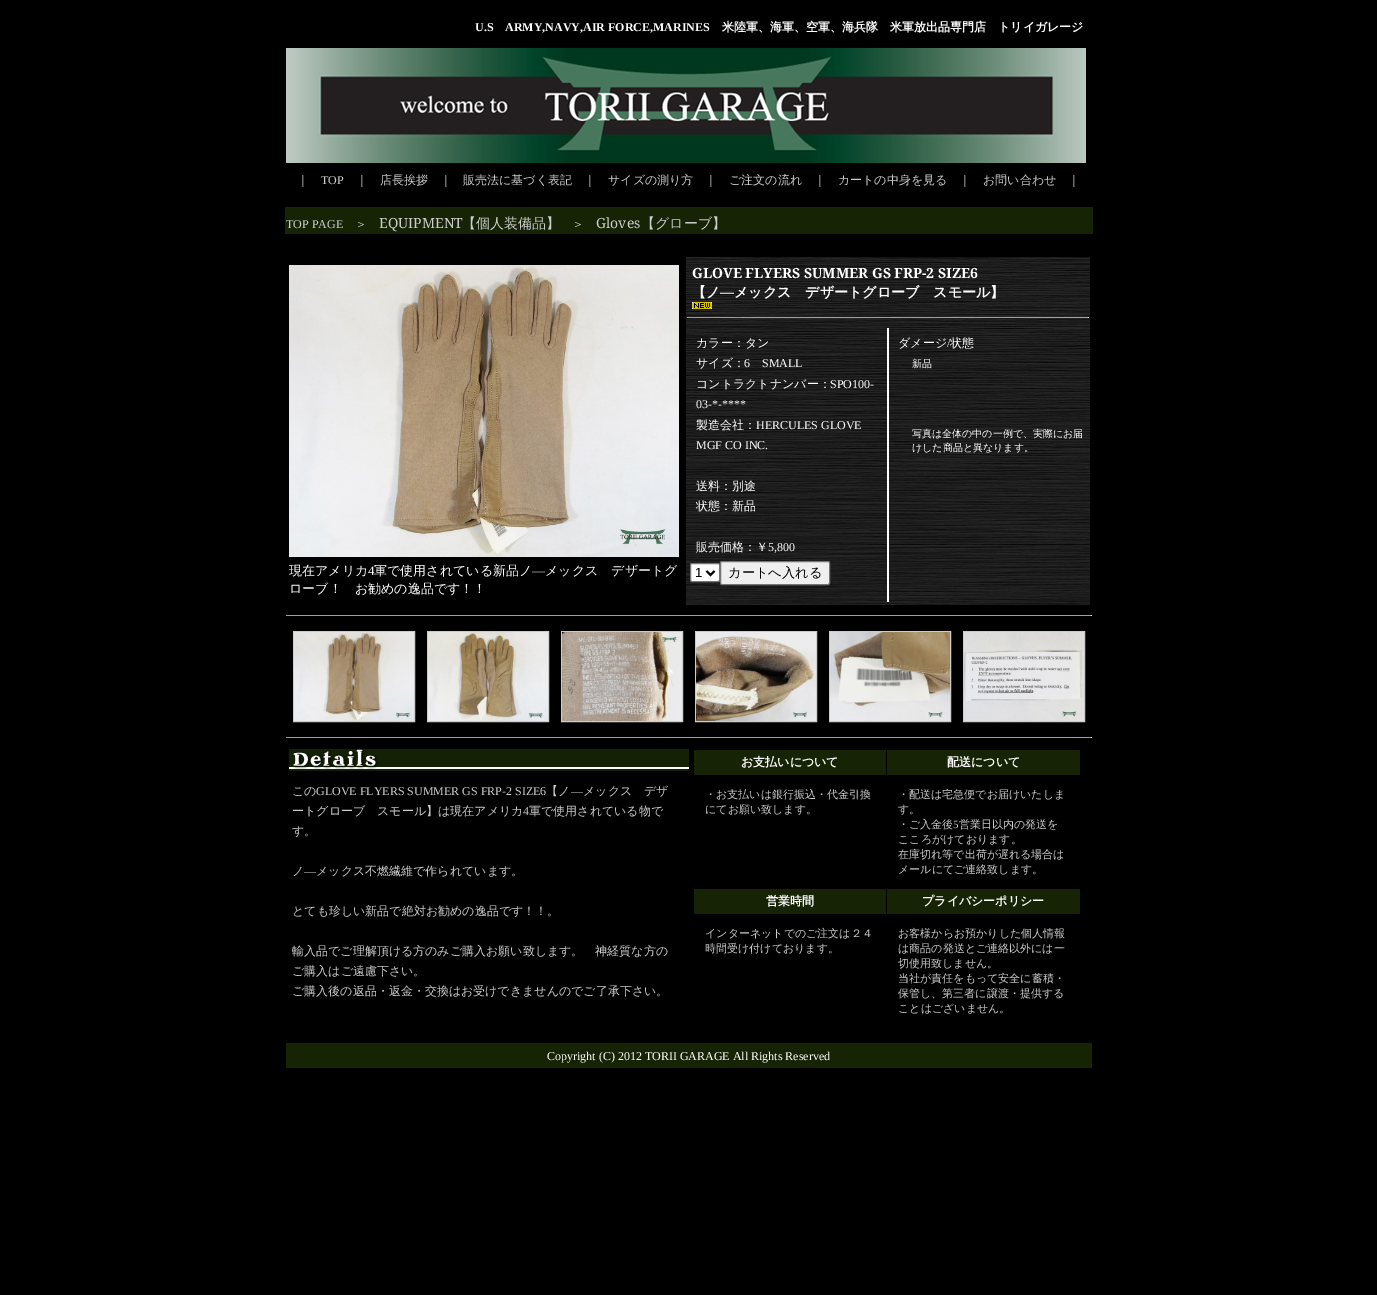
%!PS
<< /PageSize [1377 1295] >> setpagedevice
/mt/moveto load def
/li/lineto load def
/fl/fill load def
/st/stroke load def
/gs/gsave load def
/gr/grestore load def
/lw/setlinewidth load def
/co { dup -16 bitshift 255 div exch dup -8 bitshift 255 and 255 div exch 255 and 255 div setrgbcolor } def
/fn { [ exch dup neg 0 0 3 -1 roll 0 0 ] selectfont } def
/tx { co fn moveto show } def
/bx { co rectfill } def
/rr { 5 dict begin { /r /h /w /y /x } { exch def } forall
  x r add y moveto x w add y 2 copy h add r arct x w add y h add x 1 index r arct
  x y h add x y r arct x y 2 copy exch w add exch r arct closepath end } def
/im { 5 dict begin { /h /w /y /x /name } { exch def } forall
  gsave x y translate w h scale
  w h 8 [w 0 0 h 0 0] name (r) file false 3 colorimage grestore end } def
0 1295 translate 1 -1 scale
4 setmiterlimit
0 0 1377 1295 16#000000 bx
(media/1.raw) 286 48 800 115 im
285 207 808 27 16#162305 bx
(media/2.raw) 289 265 390 292 im
(media/3.raw) 686 257 404 348 im
(media/4.raw) 692 302 20 7 im
687 317 402 1 16#9F9F9F bx
1088 317 1 1 16#EEEEEE bx
16#FFFFFF co
690.5 563.5 29 18 1.5 rr gs fl gr
16#767676 co
st
16#000000 co
2 lw
706.5 571 mt 710.5 575 li 714.5 571 li st
16#EFEFEF co
720.5 561.5 109 23 1.5 rr gs fl gr
16#767676 co
1 lw
st
887 328 2 274 16#FFFFFF bx
286 615 806 1 16#9F9F9F bx
1091 615 1 1 16#EEEEEE bx
16#CCCCCC co
293.5 631.5 121 90 rectstroke
(media/5.raw) 294 632 120 89 im
427.5 631.5 121 90 rectstroke
(media/6.raw) 428 632 120 89 im
561.5 631.5 121 90 rectstroke
(media/7.raw) 562 632 120 89 im
695.5 631.5 121 90 rectstroke
(media/8.raw) 696 632 120 89 im
829.5 631.5 121 90 rectstroke
(media/9.raw) 830 632 120 89 im
963.5 631.5 121 90 rectstroke
(media/10.raw) 964 632 120 89 im
286 737 806 1 16#9F9F9F bx
1091 737 1 1 16#EEEEEE bx
(media/11.raw) 289 749 400 22 im
694 750 192 25 16#162305 bx
887 750 193 25 16#162305 bx
694 889 192 25 16#162305 bx
887 889 193 25 16#162305 bx
286 1043 806 25 16#162305 bx
(U.S) 475 31 /LiberationSerif-Bold 12 16#FFFFFF tx
(ARMY,NAVY,AIR FORCE,MARINES) 505 31 /LiberationSerif-Bold 12 16#FFFFFF tx
(米陸軍、海軍、空軍、海兵隊　米軍放出品専門店　トリイガレージ) 722 31 /WenQuanYiZenHei-Bold 12 16#FFFFFF tx
(｜) 297 184 /WenQuanYiZenHei-Medium 12 16#CCCCCC tx
(TOP) 321 184 /LiberationSerif-Regular 12 16#CCCCCC tx
(｜) 356 184 /WenQuanYiZenHei-Medium 12 16#CCCCCC tx
(店長挨拶) 380 184 /WenQuanYiZenHei-Medium 12 16#CCCCCC tx
(｜) 440 184 /WenQuanYiZenHei-Medium 12 16#CCCCCC tx
(販売法に基づく表記) 463 184 /WenQuanYiZenHei-Medium 12 16#CCCCCC tx
(｜) 584 184 /WenQuanYiZenHei-Medium 12 16#CCCCCC tx
(サイズの測り方) 608 184 /WenQuanYiZenHei-Medium 12 16#CCCCCC tx
(｜) 705 184 /WenQuanYiZenHei-Medium 12 16#CCCCCC tx
(ご注文の流れ) 729 184 /WenQuanYiZenHei-Medium 12 16#CCCCCC tx
(｜　カートの中身を見る　｜) 814 184 /WenQuanYiZenHei-Medium 12 16#CCCCCC tx
(お問い合わせ) 983 184 /WenQuanYiZenHei-Medium 12 16#CCCCCC tx
(｜) 1068 184 /WenQuanYiZenHei-Medium 12 16#CCCCCC tx
(TOP PAGE) 286 228 /LiberationSerif-Regular 12 16#CCCCCC tx
(＞) 355 228 /WenQuanYiZenHei-Medium 12 16#CCCCCC tx
(EQUIPMENT) 379 228 /NotoSerif-Regular 14 16#CCCCCC tx
(【個人装備品】) 462 228 /WenQuanYiZenHei-Medium 14 16#CCCCCC tx
(＞) 572 228 /WenQuanYiZenHei-Medium 12 16#CCCCCC tx
(Gloves) 596 228 /NotoSerif-Regular 14 16#CCCCCC tx
(【グローブ】) 641 228 /WenQuanYiZenHei-Medium 14 16#CCCCCC tx
(現在アメリカ) 289 575 /WenQuanYiZenHei-Medium 13 16#FFFFFF tx
(4) 368 575 /LiberationSerif-Regular 13 16#FFFFFF tx
(軍で使用されている新品ノ) 374 575 /WenQuanYiZenHei-Medium 13 16#FFFFFF tx
(―) 532 575 /LiberationSerif-Regular 13 16#FFFFFF tx
(メックス　デザートグ) 545 575 /WenQuanYiZenHei-Medium 13 16#FFFFFF tx
(ローブ！　お勧めの逸品です！！) 289 593 /WenQuanYiZenHei-Medium 13 16#FFFFFF tx
(GLOVE FLYERS SUMMER GS FRP-2 SIZE6) 692 278 /NotoSerif-Bold 14 16#FFFFFF tx
(【ノ) 692 297 /WenQuanYiZenHei-Bold 14 16#FFFFFF tx
(―) 720 297 /NotoSerif-Bold 14 16#FFFFFF tx
(メックス　デザートグローブ　スモール】) 734 297 /WenQuanYiZenHei-Bold 14 16#FFFFFF tx
(カラー：タン) 696 347 /WenQuanYiZenHei-Medium 12 16#FFFFFF tx
(サイズ：) 696 367 /WenQuanYiZenHei-Medium 12 16#FFFFFF tx
(6) 744 367 /LiberationSerif-Regular 12 16#FFFFFF tx
(SMALL) 762 367 /LiberationSerif-Regular 12 16#FFFFFF tx
(コントラクトナンバー：) 696 388 /WenQuanYiZenHei-Medium 12 16#FFFFFF tx
(SPO100-) 830 388 /LiberationSerif-Regular 12 16#FFFFFF tx
(03-*-****) 696 408 /LiberationSerif-Regular 12 16#FFFFFF tx
(製造会社：) 696 429 /WenQuanYiZenHei-Medium 12 16#FFFFFF tx
(HERCULES GLOVE) 756 429 /LiberationSerif-Regular 12 16#FFFFFF tx
(MGF CO INC.) 696 449 /LiberationSerif-Regular 12 16#FFFFFF tx
(送料：別途) 696 490 /WenQuanYiZenHei-Medium 12 16#FFFFFF tx
(状態：新品) 696 510 /WenQuanYiZenHei-Medium 12 16#FFFFFF tx
(販売価格：￥) 696 551 /WenQuanYiZenHei-Medium 12 16#FFFFFF tx
(5,800) 768 551 /LiberationSerif-Regular 12 16#FFFFFF tx
(1) 695 577 /LiberationSans-Regular 13.25 16#000000 tx
(カートへ入れる) 728 577 /WenQuanYiZenHei-Medium 13.25 16#000000 tx
(ダメージ) 898 347 /WenQuanYiZenHei-Medium 12 16#FFFFFF tx
(/) 947 347 /LiberationSerif-Regular 12 16#FFFFFF tx
(状態) 950 347 /WenQuanYiZenHei-Medium 12 16#FFFFFF tx
(新品) 912 367 /WenQuanYiZenHei-Medium 10 16#FFFFFF tx
(写真は全体の中の一例で、実際にお届) 912 437 /WenQuanYiZenHei-Medium 10 16#FFFFFF tx
(けした商品と異なります。) 912 451 /WenQuanYiZenHei-Medium 10 16#FFFFFF tx
(この) 292 795 /WenQuanYiZenHei-Medium 12 16#CCCCCC tx
(GLOVE FLYERS SUMMER GS FRP-2 SIZE6) 316 795 /LiberationSerif-Regular 12 16#CCCCCC tx
(【ノ) 546 795 /WenQuanYiZenHei-Medium 12 16#CCCCCC tx
(―) 571 795 /LiberationSerif-Regular 12 16#CCCCCC tx
(メックス　デザ) 583 795 /WenQuanYiZenHei-Medium 12 16#CCCCCC tx
(ートグローブ　スモール】は現在アメリカ) 292 815 /WenQuanYiZenHei-Medium 12 16#CCCCCC tx
(4) 523 815 /LiberationSerif-Regular 12 16#CCCCCC tx
(軍で使用されている物で) 529 815 /WenQuanYiZenHei-Medium 12 16#CCCCCC tx
(す。) 292 835 /WenQuanYiZenHei-Medium 12 16#CCCCCC tx
(ノ) 292 875 /WenQuanYiZenHei-Medium 12 16#CCCCCC tx
(―) 304 875 /LiberationSerif-Regular 12 16#CCCCCC tx
(メックス不燃繊維で作られています。) 316 875 /WenQuanYiZenHei-Medium 12 16#CCCCCC tx
(とても珍しい新品で絶対お勧めの逸品です！！。) 292 915 /WenQuanYiZenHei-Medium 12 16#CCCCCC tx
(輸入品でご理解頂ける方のみご購入お願い致します。　神経質な方の) 292 955 /WenQuanYiZenHei-Medium 12 16#CCCCCC tx
(ご購入はご遠慮下さい。) 292 975 /WenQuanYiZenHei-Medium 12 16#CCCCCC tx
(ご購入後の返品・返金・交換はお受けできませんのでご了承下さい。) 292 995 /WenQuanYiZenHei-Medium 12 16#CCCCCC tx
(お支払いについて) 741 766 /WenQuanYiZenHei-Bold 12 16#FFFFFF tx
(配送について) 947 766 /WenQuanYiZenHei-Bold 12 16#FFFFFF tx
(・お支払いは銀行振込・代金引換) 705 798 /WenQuanYiZenHei-Medium 11 16#CCCCCC tx
(にてお願い致します。) 705 813 /WenQuanYiZenHei-Medium 11 16#CCCCCC tx
(・配送は宅急便でお届けいたしま) 898 798 /WenQuanYiZenHei-Medium 11 16#CCCCCC tx
(す。) 898 813 /WenQuanYiZenHei-Medium 11 16#CCCCCC tx
(・ご入金後) 898 828 /WenQuanYiZenHei-Medium 11 16#CCCCCC tx
(5) 953 828 /LiberationSerif-Regular 11 16#CCCCCC tx
(営業日以内の発送を) 959 828 /WenQuanYiZenHei-Medium 11 16#CCCCCC tx
(こころがけております。) 898 843 /WenQuanYiZenHei-Medium 11 16#CCCCCC tx
(在庫切れ等で出荷が遅れる場合は) 898 858 /WenQuanYiZenHei-Medium 11 16#CCCCCC tx
(メールにてご連絡致します。) 898 873 /WenQuanYiZenHei-Medium 11 16#CCCCCC tx
(営業時間) 766 905 /WenQuanYiZenHei-Bold 12 16#FFFFFF tx
(プライバシーポリシー) 922 905 /WenQuanYiZenHei-Bold 12 16#FFFFFF tx
(インターネットでのご注文は２４) 705 937 /WenQuanYiZenHei-Medium 11 16#CCCCCC tx
(時間受け付けております。) 705 952 /WenQuanYiZenHei-Medium 11 16#CCCCCC tx
(お客様からお預かりした個人情報) 898 937 /WenQuanYiZenHei-Medium 11 16#CCCCCC tx
(は商品の発送とご連絡以外には一) 898 952 /WenQuanYiZenHei-Medium 11 16#CCCCCC tx
(切使用致しません。) 898 967 /WenQuanYiZenHei-Medium 11 16#CCCCCC tx
(当社が責任をもって安全に蓄積・) 898 982 /WenQuanYiZenHei-Medium 11 16#CCCCCC tx
(保管し、第三者に譲渡・提供する) 898 997 /WenQuanYiZenHei-Medium 11 16#CCCCCC tx
(ことはございません。) 898 1012 /WenQuanYiZenHei-Medium 11 16#CCCCCC tx
(Copyright \(C\) 2012 TORII GARAGE All Rights Reserved) 547 1060 /LiberationSerif-Regular 12 16#FFFFFF tx
showpage
